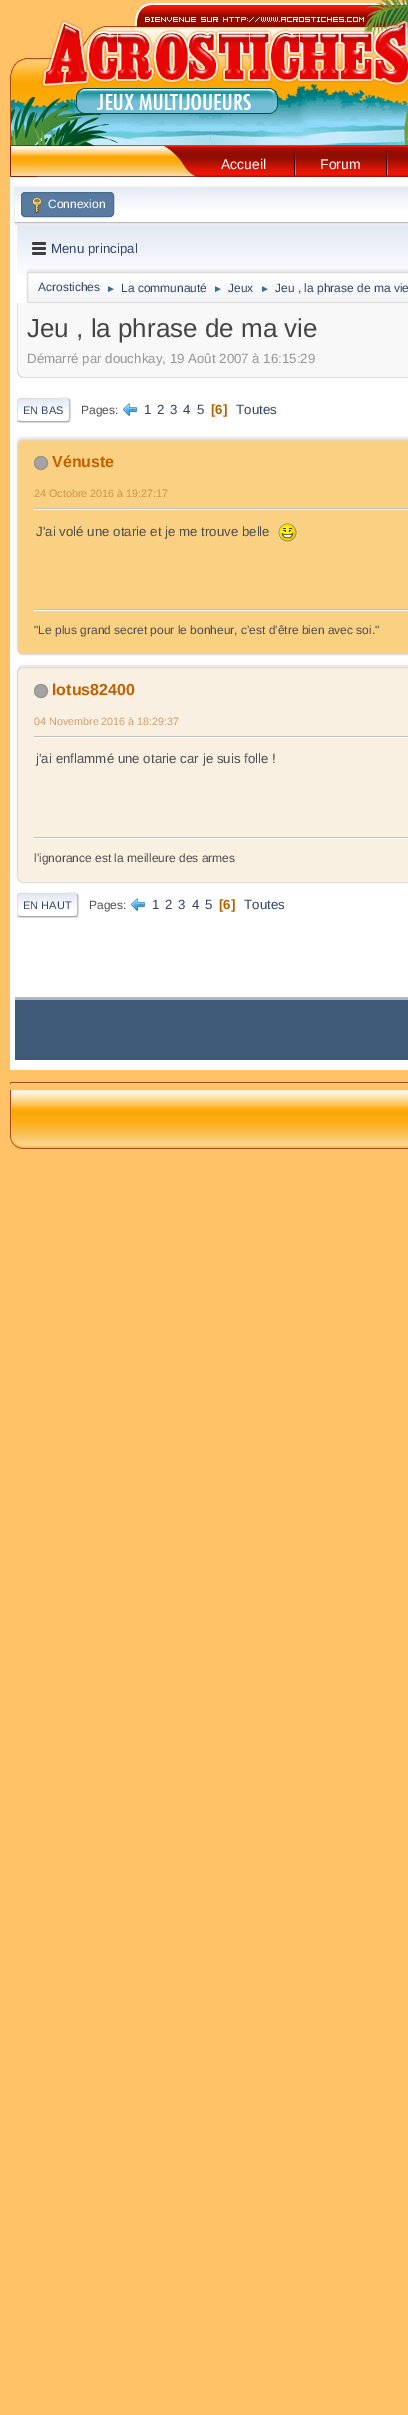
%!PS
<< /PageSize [408 2415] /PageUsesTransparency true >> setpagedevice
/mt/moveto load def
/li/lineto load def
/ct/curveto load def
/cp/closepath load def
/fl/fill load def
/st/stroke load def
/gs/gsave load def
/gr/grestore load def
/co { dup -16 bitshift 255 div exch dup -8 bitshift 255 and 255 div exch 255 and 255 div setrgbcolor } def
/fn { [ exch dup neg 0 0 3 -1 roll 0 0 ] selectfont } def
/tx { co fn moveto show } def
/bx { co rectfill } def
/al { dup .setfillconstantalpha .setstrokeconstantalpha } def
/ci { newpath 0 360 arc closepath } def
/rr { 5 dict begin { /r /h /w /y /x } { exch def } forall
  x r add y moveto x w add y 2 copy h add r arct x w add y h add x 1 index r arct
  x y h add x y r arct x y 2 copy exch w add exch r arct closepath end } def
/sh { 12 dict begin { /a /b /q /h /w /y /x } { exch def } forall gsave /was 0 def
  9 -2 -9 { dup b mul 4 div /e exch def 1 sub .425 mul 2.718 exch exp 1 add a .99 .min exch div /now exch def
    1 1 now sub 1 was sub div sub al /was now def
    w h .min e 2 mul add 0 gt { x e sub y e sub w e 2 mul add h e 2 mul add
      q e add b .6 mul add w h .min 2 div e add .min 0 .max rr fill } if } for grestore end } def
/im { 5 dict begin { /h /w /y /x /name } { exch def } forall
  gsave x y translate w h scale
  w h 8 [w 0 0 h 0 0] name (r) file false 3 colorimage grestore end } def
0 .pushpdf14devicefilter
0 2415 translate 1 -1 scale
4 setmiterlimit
0 0 408 2415 16#FFC267 bx
(media/1.raw) 0 0 408 145 im
(media/2.raw) 0 145 194 32 im
(media/3.raw) 194 145 214 32 im
(media/4.raw) 294 148 2 27 im
(media/4.raw) 386 148 2 27 im
10 177 398 893 16#FFFFFF bx
16#000000 co
15 188 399 36 0 2 .16 sh
gs 15 187 mt 408 187 li 408 222 li 15 222 li cp clip newpath
<< /ShadingType 2 /ColorSpace /DeviceRGB /Coords [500 187 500 222] /Extend [true true] /Function << /FunctionType 3 /Domain [0 1] /Functions [<< /FunctionType 2 /Domain [0 1] /C0 [.886 .914 .953] /C1 [1 1 1] /N 1 >> << /FunctionType 2 /Domain [0 1] /C0 [1 1 1] /C1 [1 1 1] /N 1 >>] /Bounds [.7] /Encode [0 1 0 1] >> >> shfill gr
15 222 393 1 16#BBBBBB bx
16#597B9F co
21.5 192.5 92 24 3.5 rr gs fl gr
16#4A6B8C co
st
(media/5.raw) 32 197 10 16 im
gs 17 225 mt 408 225 li 408 276 li 17 276 li cp clip newpath
<< /ShadingType 2 /ColorSpace /DeviceRGB /Coords [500 225 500 305] /Extend [true true] /Function << /FunctionType 3 /Domain [0 1] /Functions [<< /FunctionType 2 /Domain [0 1] /C0 [.886 .914 .953] /C1 [1 1 1] /N 1 >> << /FunctionType 2 /Domain [0 1] /C0 [1 1 1] /C1 [1 1 1] /N 1 >>] /Bounds [.7] /Encode [0 1 0 1] >> >> shfill gr
(media/6.raw) 32 242 14 13 im
16#000000 co
27 270 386 31 2 1 .08 sh
gs 27 273 mt 408 273 li 408 302 li 27 302 li cp clip newpath
<< /ShadingType 2 /ColorSpace /DeviceRGB /Coords [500 273 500 302] /Extend [true true] /Function << /FunctionType 3 /Domain [0 1] /Functions [<< /FunctionType 2 /Domain [0 1] /C0 [1 1 1] /C1 [.945 .953 .961] /N 1 >> << /FunctionType 2 /Domain [0 1] /C0 [.945 .953 .961] /C1 [.945 .953 .961] /N 1 >>] /Bounds [.95] /Encode [0 1 0 1] >> >> shfill gr
16#DDDDDD co
27.5 272.5 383 30 1.5 rr st
16#F8F8F8 co
17 303 mt 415 303 li 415 371 li 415 375 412 378 408 378 ct 24 378 li 20 378 17 375 17 371 ct cp fl
16#DDDDDD co
17 303 mt 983 303 li 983 371 li 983 375 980 378 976 378 ct 24 378 li 20 378 17 375 17 371 ct cp 18 303 mt 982 303 li 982 371 li 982 374 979 377 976 377 ct 24 377 li 21 377 18 374 18 371 ct cp eofill
18 399 53 24 3 .5 .57 sh
16#FFFFFF co
17 398 53 24 3 rr fl
gs
17 398 53 24 3 rr clip newpath
gs 17 399 mt 70 399 li 70 421 li 17 421 li cp clip newpath
<< /ShadingType 2 /ColorSpace /DeviceRGB /Coords [44 399 44 421] /Extend [true true] /Function << /FunctionType 3 /Domain [0 1] /Functions [<< /FunctionType 2 /Domain [0 1] /C0 [.886 .914 .953] /C1 [1 1 1] /N 1 >> << /FunctionType 2 /Domain [0 1] /C0 [1 1 1] /C1 [1 1 1] /N 1 >>] /Bounds [.7] /Encode [0 1 0 1] >> >> shfill gr
gr
16#BBBBBB co
69 399 mt 69 399.5 69.5 400.5 69.5 401 ct 69.5 419 li 69.5 419.5 69 420.5 69 421 ct st
16#AAAAAA co
69 421 mt 67 421.5 li 20 421.5 li 18 421 li st
gs
17 393 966 34 rectclip
16#DDDDDD co
18 421 mt 16.5 419 17.5 412 17.5 410 ct 17.5 397.5 15.5 398.5 28 398.5 ct 59 398.5 li 62.5 398.5 66.5 397 69 399 ct st
gr
(media/7.raw) 123 403 14 13 im
16#000000 co
17 437 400 216 6 1 .1 sh
16#FAD083 co
17.5 439.5 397 215 5.5 rr gs fl gr
16#DDDDDD co
st
16#A7A2A2 co
41 463 6.5 ci gs fl gr
16#969292 co
st
34 509 374 1 16#FFFFFF bx
34 508 374 1 16#BFBFBF bx
(media/8.raw) 278 523 19 19 im
34 610 374 1 16#FFFFFF bx
34 609 374 1 16#BFBFBF bx
16#000000 co
17 665 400 216 6 1 .1 sh
16#FAF0E1 co
17.5 667.5 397 215 5.5 rr gs fl gr
16#DDDDDD co
st
16#A7A2A2 co
41 691 6.5 ci gs fl gr
16#969292 co
st
34 737 374 1 16#FFFFFF bx
34 736 374 1 16#BFBFBF bx
34 838 374 1 16#FFFFFF bx
34 837 374 1 16#BFBFBF bx
16#DDDDDD co
18 894 61 24 3 .5 .57 sh
16#FFFFFF co
17 893 61 24 3 rr fl
gs
17 893 61 24 3 rr clip newpath
gs 17 894 mt 78 894 li 78 916 li 17 916 li cp clip newpath
<< /ShadingType 2 /ColorSpace /DeviceRGB /Coords [48 894 48 916] /Extend [true true] /Function << /FunctionType 3 /Domain [0 1] /Functions [<< /FunctionType 2 /Domain [0 1] /C0 [.886 .914 .953] /C1 [1 1 1] /N 1 >> << /FunctionType 2 /Domain [0 1] /C0 [1 1 1] /C1 [1 1 1] /N 1 >>] /Bounds [.7] /Encode [0 1 0 1] >> >> shfill gr
gr
16#BBBBBB co
77 894 mt 77 894.5 77.5 895.5 77.5 896 ct 77.5 914 li 77.5 914.5 77 915.5 77 916 ct st
16#AAAAAA co
77 916 mt 75 916.5 li 20 916.5 li 18 916 li st
gs
17 888 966 34 rectclip
16#DDDDDD co
18 916 mt 16.5 914 17.5 907 17.5 905 ct 17.5 891.5 15.5 893.5 29 893.5 ct 66 893.5 li 69.5 893.5 74 891.5 77 894 ct st
gr
(media/7.raw) 131 898 14 13 im
15 1000 393 60 16#3E5A78 bx
15 997 393 3 16#B2B6BD bx
(media/9.raw) 10 1082 398 2 im
(media/10.raw) 10 1090 398 46 im
(media/11.raw) 10 1136 398 13 im
(Accueil) 221 169 /LiberationSans-Regular 14 16#FFFFFF tx
(Forum) 320 169 /LiberationSans-Regular 14 16#FFFFFF tx
(Connexion) 48 208 /LiberationSans-Regular 12 16#FFFFFF tx
(Menu principal) 51 253 /LiberationSans-Regular 13.3 16#334466 tx
(Acrostiches) 38 291 /LiberationSans-Regular 12 16#334466 tx
(►) 106 292 /LiberationSans-Regular 10 16#3F6B8C tx
(La communauté) 121 292 /LiberationSans-Regular 12 16#334466 tx
(►) 213 292 /LiberationSans-Regular 10 16#3F6B8C tx
(Jeux) 228 292 /LiberationSans-Regular 12 16#334466 tx
(►) 260 292 /LiberationSans-Regular 10 16#3F6B8C tx
(Jeu , la phrase de ma vie) 275 292 /LiberationSans-Regular 12 16#334466 tx
(Jeu , la phrase de ma vie) 27 337 /LiberationSans-Regular 26 16#444444 tx
(Démarré par douchkay, 19 Août 2007 à 16:15:29) 27 363 /LiberationSans-Regular 13.3 16#959595 tx
(EN BAS) 23 414 /LiberationSans-Regular 11 16#334466 tx
(Pages:) 81 414 /LiberationSans-Regular 12 16#4D4D4D tx
(1) 144 414 /LiberationSans-Regular 13.3 16#334466 tx
(2) 157 414 /LiberationSans-Regular 13.3 16#334466 tx
(3) 170 414 /LiberationSans-Regular 13.3 16#334466 tx
(4) 183 414 /LiberationSans-Regular 13.3 16#334466 tx
(5) 197 414 /LiberationSans-Regular 13.3 16#334466 tx
([6]) 211 414 /LiberationSans-Bold 13.3 16#B46100 tx
(Toutes) 236 414 /LiberationSans-Regular 13.3 16#334466 tx
(Vénuste) 52 467 /LiberationSans-Bold 16 16#C06002 tx
(24 Octobre 2016 à 19:27:17) 34 497 /LiberationSans-Regular 10.75 16#CC924B tx
(J'ai volé une otarie et je me trouve belle) 36 536 /LiberationSans-Regular 13.3 16#4D4D4D tx
("Le plus grand secret pour le bonheur, c'est d'être bien avec soi.") 34 634 /LiberationSans-Regular 12 16#4D4D4D tx
(lotus82400) 52 695 /LiberationSans-Bold 16 16#C06002 tx
(04 Novembre 2016 à 18:29:37) 34 725 /LiberationSans-Regular 10.75 16#CC9E70 tx
(j'ai enflammé une otarie car je suis folle !) 36 763 /LiberationSans-Regular 13.3 16#4D4D4D tx
(l'ignorance est la meilleure des armes) 34 862 /LiberationSans-Regular 12 16#4D4D4D tx
(EN HAUT) 23 909 /LiberationSans-Regular 11 16#334466 tx
(Pages:) 89 909 /LiberationSans-Regular 12 16#4D4D4D tx
(1) 152 909 /LiberationSans-Regular 13.3 16#334466 tx
(2) 165 909 /LiberationSans-Regular 13.3 16#334466 tx
(3) 178 909 /LiberationSans-Regular 13.3 16#334466 tx
(4) 192 909 /LiberationSans-Regular 13.3 16#334466 tx
(5) 205 909 /LiberationSans-Regular 13.3 16#334466 tx
([6]) 219 909 /LiberationSans-Bold 13.3 16#B46100 tx
(Toutes) 244 909 /LiberationSans-Regular 13.3 16#334466 tx
.poppdf14devicefilter showpage
